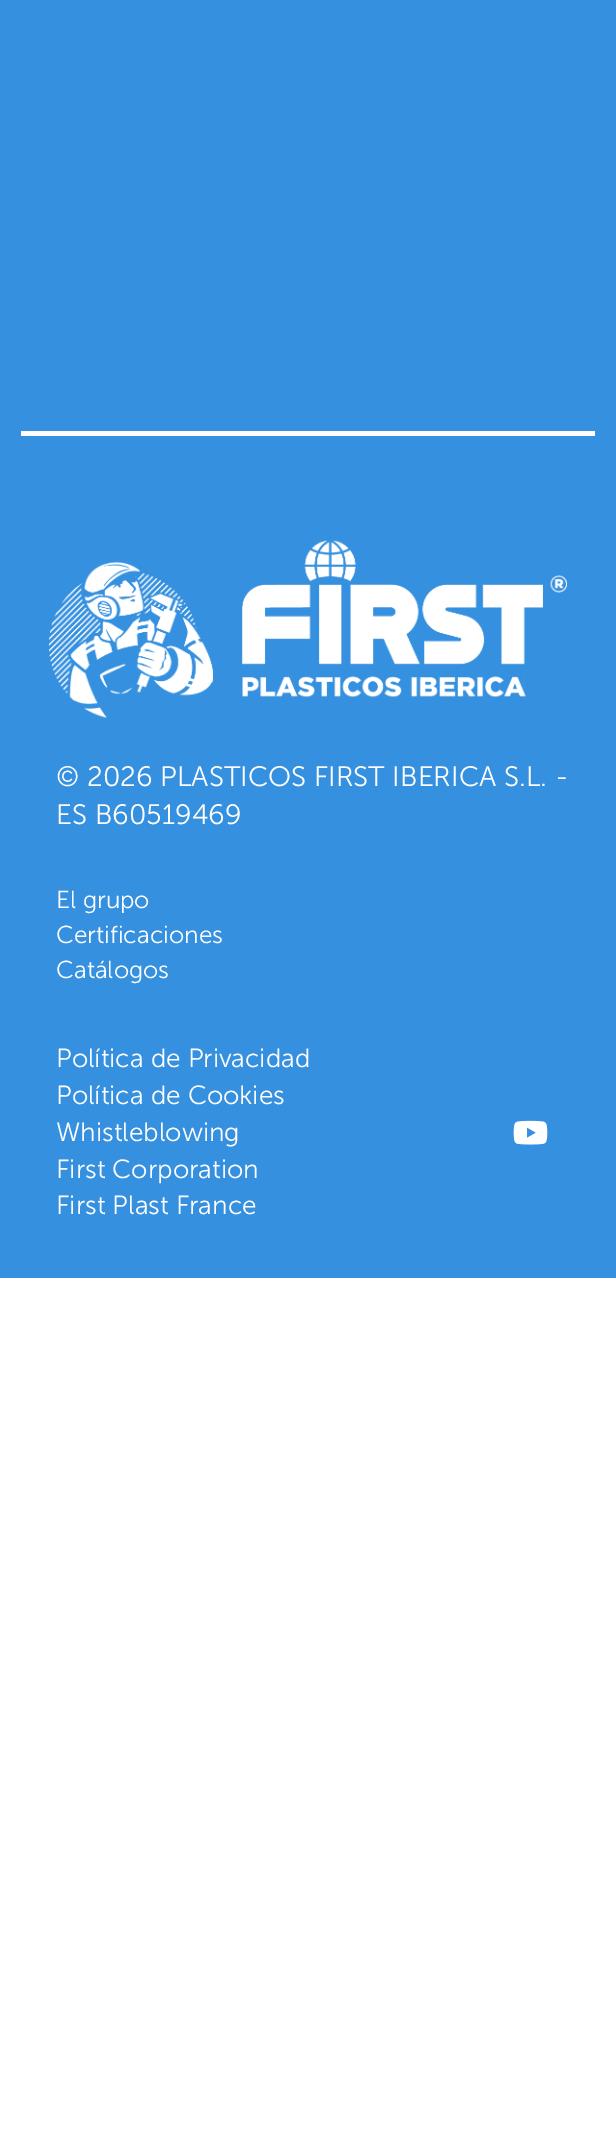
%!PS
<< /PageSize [616 2133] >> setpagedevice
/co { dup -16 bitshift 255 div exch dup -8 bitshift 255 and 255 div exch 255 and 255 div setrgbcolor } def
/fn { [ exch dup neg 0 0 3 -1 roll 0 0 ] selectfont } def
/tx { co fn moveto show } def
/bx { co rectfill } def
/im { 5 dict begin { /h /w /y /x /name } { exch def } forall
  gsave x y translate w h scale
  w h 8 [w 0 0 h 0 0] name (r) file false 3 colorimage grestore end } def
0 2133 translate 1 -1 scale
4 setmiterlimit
0 0 616 2133 16#FFFFFF bx
0 0 616 1278 16#3590DF bx
21 431 574 5 16#FFFFFF bx
(media/1.raw) 49 540 518 178 im
(media/2.raw) 513 1120 35 25 im
(© 2026 PLASTICOS FIRST IBERICA S.L. -) 56 786 /MuseoSans-Light 28 16#FFFFFF tx
(ES B60519469) 56 824 /MuseoSans-Light 28 16#FFFFFF tx
(El grupo) 56 908 /MuseoSans-Light 24.5 16#FFFFFF tx
(Certificaciones) 56 943 /MuseoSans-Light 24.5 16#FFFFFF tx
(Catálogos) 56 978 /MuseoSans-Light 24.5 16#FFFFFF tx
(Política de Privacidad) 56 1067 /MuseoSans-Light 26.25 16#FFFFFF tx
(Política de Cookies) 56 1104 /MuseoSans-Light 26.25 16#FFFFFF tx
(Whistleblowing) 56 1141 /MuseoSans-Light 26.25 16#FFFFFF tx
(First Corporation) 56 1178 /MuseoSans-Light 26.25 16#FFFFFF tx
(First Plast France) 56 1214 /MuseoSans-Light 26.25 16#FFFFFF tx
showpage
